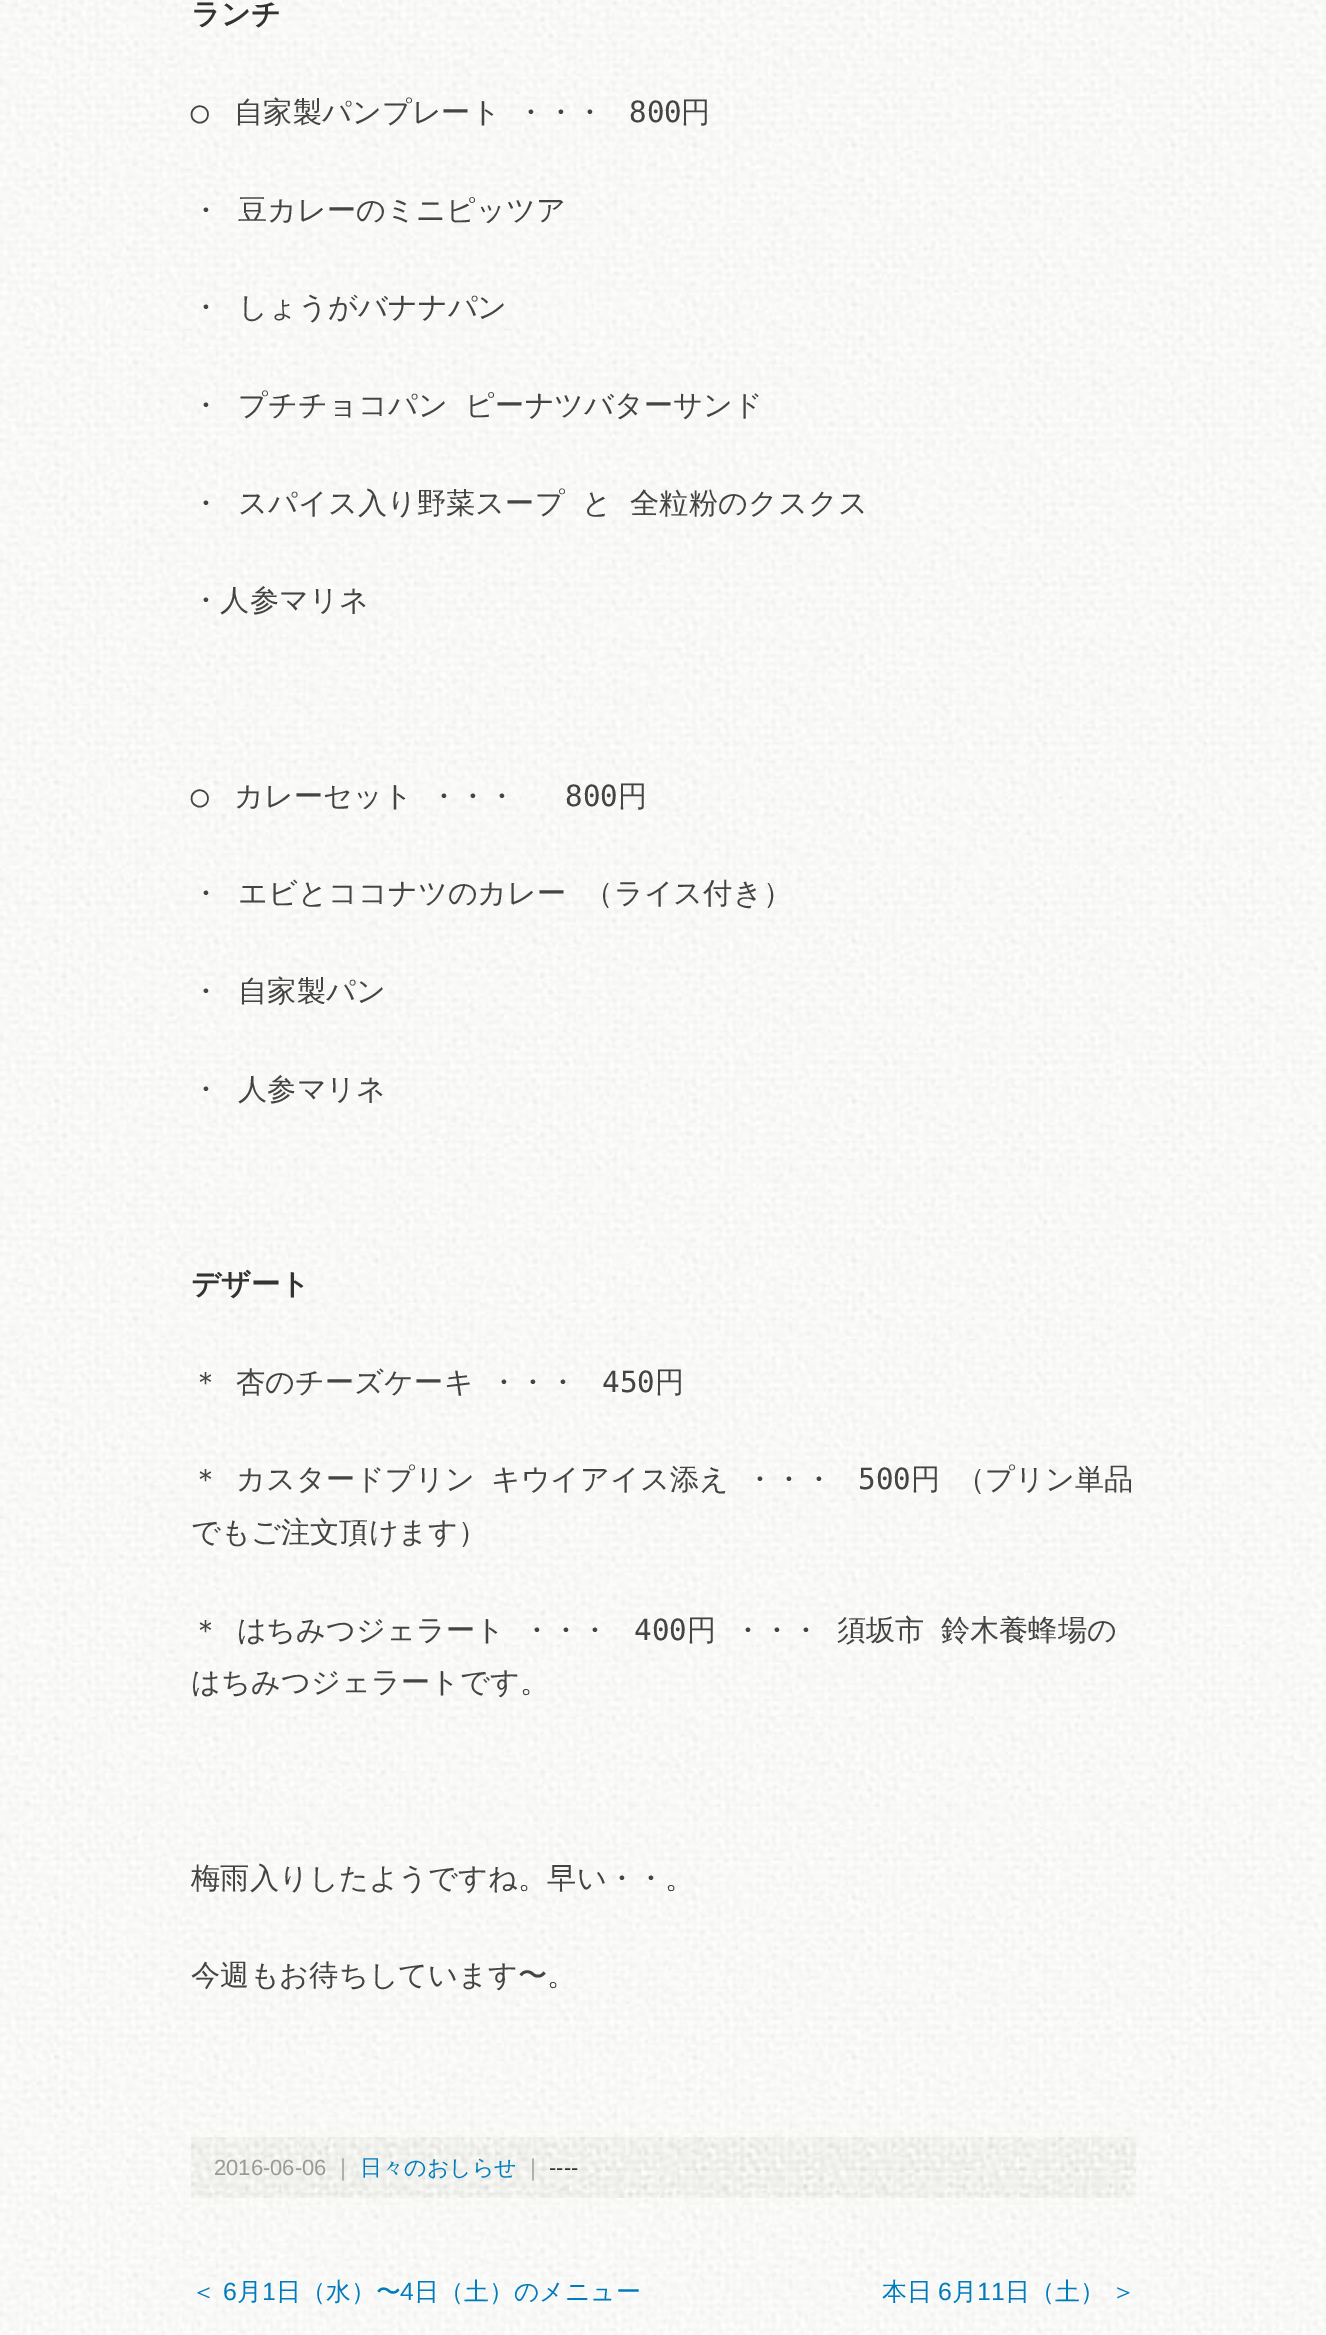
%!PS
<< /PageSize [1326 2335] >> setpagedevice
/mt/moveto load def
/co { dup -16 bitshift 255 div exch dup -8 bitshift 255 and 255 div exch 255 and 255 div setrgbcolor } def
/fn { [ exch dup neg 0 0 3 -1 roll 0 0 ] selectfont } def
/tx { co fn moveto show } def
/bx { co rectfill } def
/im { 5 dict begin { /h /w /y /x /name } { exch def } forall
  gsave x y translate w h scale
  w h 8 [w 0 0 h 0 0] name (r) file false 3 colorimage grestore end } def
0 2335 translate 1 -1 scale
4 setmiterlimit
0 0 1326 2335 16#FFFFFF bx
(media/1.raw) 0 0 1326 2335 im
(media/2.raw) 191 2137 946 61 im
(ランチ) 191 24 /WenQuanYiZenHei-Bold 29.25 16#333333 tx
(◯) 191 122 /DejaVuSansMono-Regular 29.25 16#444444 tx
/WenQuanYiZenHei-Medium 29.25 fn
234 122 mt 7 0 32 (自家製パンプレート ・・・) widthshow
(800) 629 122 /DejaVuSansMono-Regular 29.25 16#444444 tx
(円) 681 122 /WenQuanYiZenHei-Medium 29.25 16#444444 tx
191 220 mt 9 0 32 (・ 豆カレーのミニピッツア) widthshow
191 317 mt 9 0 32 (・ しょうがバナナパン) widthshow
191 415 mt 9 0 32 (・ プチチョコパン ピーナツバターサンド) widthshow
191 513 mt 9 0 32 (・ スパイス入り野菜スープ と 全粒粉のクスクス) widthshow
(・人参マリネ) 191 610 /WenQuanYiZenHei-Medium 29.25 16#444444 tx
(◯) 191 806 /DejaVuSansMono-Regular 29.25 16#444444 tx
/WenQuanYiZenHei-Medium 29.25 fn
234 806 mt 7 0 32 (カレーセット ・・・) widthshow
(800) 565 806 /DejaVuSansMono-Regular 29.25 16#444444 tx
(円) 618 806 /WenQuanYiZenHei-Medium 29.25 16#444444 tx
191 903 mt 9 0 32 (・ エビとココナツのカレー （ライス付き）) widthshow
191 1001 mt 9 0 32 (・ 自家製パン) widthshow
191 1099 mt 9 0 32 (・ 人参マリネ) widthshow
(デザート) 191 1294 /WenQuanYiZenHei-Bold 29.25 16#333333 tx
/WenQuanYiZenHei-Medium 29.25 fn
16#444444 co
191 1392 mt 7 0 32 (＊ 杏のチーズケーキ ・・・) widthshow
(450) 602 1392 /DejaVuSansMono-Regular 29.25 16#444444 tx
(円) 655 1392 /WenQuanYiZenHei-Medium 29.25 16#444444 tx
191 1489 mt 7 0 32 (＊ カスタードプリン キウイアイス添え ・・・) widthshow
(500) 858 1489 /DejaVuSansMono-Regular 29.25 16#444444 tx
/WenQuanYiZenHei-Medium 29.25 fn
911 1489 mt 7 0 32 (円 （プリン単品) widthshow
(でもご注文頂けます）) 191 1542 /WenQuanYiZenHei-Medium 29.25 16#444444 tx
191 1640 mt 7.5 0 32 (＊ はちみつジェラート ・・・) widthshow
(400) 634 1640 /DejaVuSansMono-Regular 29.25 16#444444 tx
/WenQuanYiZenHei-Medium 29.25 fn
687 1640 mt 7.5 0 32 (円 ・・・ 須坂市 鈴木養蜂場の) widthshow
(はちみつジェラートです。) 191 1692 /WenQuanYiZenHei-Medium 29.25 16#444444 tx
(梅雨入りしたようですね。早い・・。) 191 1888 /WenQuanYiZenHei-Medium 29.25 16#444444 tx
(今週もお待ちしています〜。) 191 1985 /WenQuanYiZenHei-Medium 29.25 16#444444 tx
(2016-06-06) 214 2175 /LiberationSans-Regular 22 16#999999 tx
(｜) 332 2175 /WenQuanYiZenHei-Medium 22 16#999999 tx
(日々のおしらせ) 360 2175 /WenQuanYiZenHei-Medium 22 16#007BBB tx
(｜) 522 2175 /WenQuanYiZenHei-Medium 22 16#999999 tx
(----) 549 2175 /LiberationSans-Regular 22 16#333333 tx
(＜) 191 2300 /WenQuanYiZenHei-Medium 24.9 16#007BBB tx
(6) 223 2300 /LiberationSans-Regular 24.9 16#007BBB tx
(月) 237 2300 /WenQuanYiZenHei-Medium 24.9 16#007BBB tx
(1) 262 2300 /LiberationSans-Regular 24.9 16#007BBB tx
(日（水）〜) 276 2300 /WenQuanYiZenHei-Medium 24.9 16#007BBB tx
(4) 400 2300 /LiberationSans-Regular 24.9 16#007BBB tx
(日（土）のメニュー) 414 2300 /WenQuanYiZenHei-Medium 24.9 16#007BBB tx
(本日) 882 2300 /WenQuanYiZenHei-Medium 24.9 16#007BBB tx
(6) 938 2300 /LiberationSans-Regular 24.9 16#007BBB tx
(月) 952 2300 /WenQuanYiZenHei-Medium 24.9 16#007BBB tx
(11) 977 2300 /LiberationSans-Regular 24.9 16#007BBB tx
/WenQuanYiZenHei-Medium 24.9 fn
1005 2300 mt -1 0 32 (日（土） ＞) widthshow
showpage
